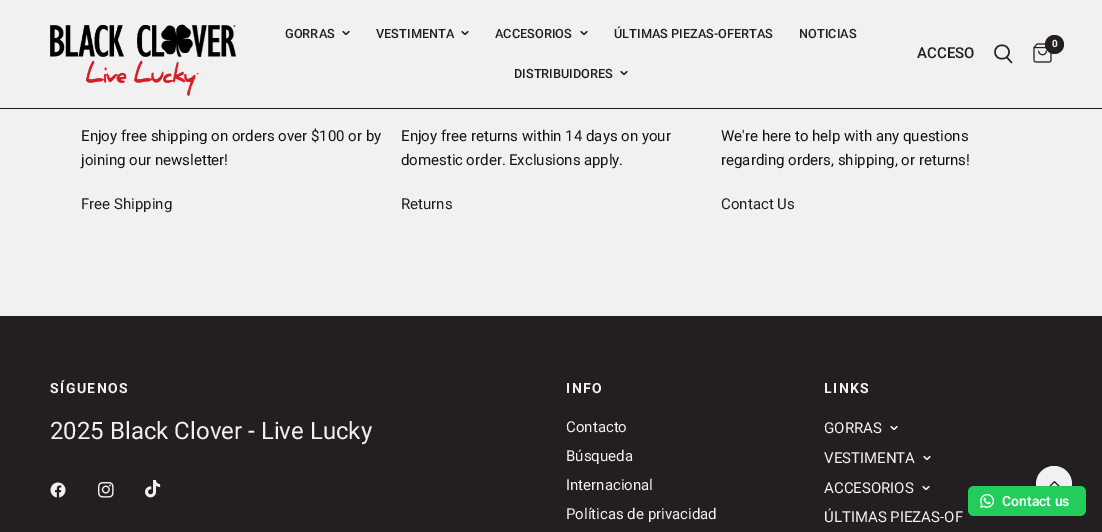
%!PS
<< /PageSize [1102 532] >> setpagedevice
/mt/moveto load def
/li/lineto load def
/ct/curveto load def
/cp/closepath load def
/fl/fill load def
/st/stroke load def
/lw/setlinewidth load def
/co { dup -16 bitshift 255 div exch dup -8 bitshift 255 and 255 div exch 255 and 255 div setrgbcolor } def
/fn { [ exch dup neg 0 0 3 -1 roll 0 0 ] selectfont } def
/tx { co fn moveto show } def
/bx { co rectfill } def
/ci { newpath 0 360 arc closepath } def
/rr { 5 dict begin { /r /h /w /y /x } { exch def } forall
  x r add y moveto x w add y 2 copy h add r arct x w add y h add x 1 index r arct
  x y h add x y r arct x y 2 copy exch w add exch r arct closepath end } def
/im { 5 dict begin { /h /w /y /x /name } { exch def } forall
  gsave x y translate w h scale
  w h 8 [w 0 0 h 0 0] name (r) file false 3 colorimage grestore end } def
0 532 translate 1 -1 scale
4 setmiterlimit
0 0 1102 532 16#F1F1F1 bx
0 108 1102 1 16#231F20 bx
(media/1.raw) 50 24 186 72 im
1.1 lw
1 setlinecap
1 setlinejoin
349 31.5 mt 346 34.5 li 343 31.5 li st
468 31.5 mt 465 34.5 li 462 31.5 li st
587 31.5 mt 584 34.5 li 581 31.5 li st
627 71.5 mt 624 74.5 li 621 71.5 li st
1.4 lw
1007 57.5 mt 1011.5 62.5 li 1009 52 mt 1009 61 995 61 995 52 ct 995 43 1009 43 1009 52 ct cp st
(media/2.raw) 1033 43 19 20 im
1054.5 44.5 9.5 ci fl
0 316 1102 216 16#231F20 bx
(media/3.raw) 50 482 16 16 im
(media/4.raw) 98 482 16 16 im
(media/5.raw) 145 480 16 18 im
16#F1F1F1 co
1.1 lw
897 426.5 mt 894 429.5 li 891 426.5 li 930 456.5 mt 927 459.5 li 924 456.5 li st
929 486.5 mt 926 489.5 li 923 486.5 li st
1054 484 18 ci fl
(media/6.raw) 1049 481 11 5 im
16#22CD5B co
968 486 118 30 6 rr fl
(media/7.raw) 980 494 14 14 im
(GORRAS) 285 38 /Roboto-Medium 12.75 16#231F20 tx
(VESTIMENTA) 376 38 /Roboto-Medium 12.75 16#231F20 tx
(ACCESORIOS) 495 38 /Roboto-Medium 12.75 16#231F20 tx
(ÚLTIMAS PIEZAS-OFERTAS) 614 38 /Roboto-Medium 12.75 16#231F20 tx
(NOTICIAS) 799 38 /Roboto-Medium 12.75 16#231F20 tx
(DISTRIBUIDORES) 514 78 /Roboto-Medium 12.75 16#231F20 tx
(ACCESO) 917 58 /Roboto-Medium 15 16#231F20 tx
(0) 1052 47 /Roboto-Bold 10 16#F1F1F1 tx
(Enjoy free shipping on orders over $100 or by) 81 141 /Roboto-Regular 15 16#151515 tx
(joining our newsletter!) 81 165 /Roboto-Regular 15 16#151515 tx
(Free Shipping) 81 209 /Roboto-Regular 15 16#231F20 tx
(Enjoy free returns within 14 days on your) 401 141 /Roboto-Regular 15 16#151515 tx
401 165 mt -.5 0 32 (domestic order. Exclusions apply.) widthshow
(Returns) 401 209 /Roboto-Regular 15 16#231F20 tx
(We're here to help with any questions) 721 141 /Roboto-Regular 15 16#151515 tx
(regarding orders, shipping, or returns!) 721 165 /Roboto-Regular 15 16#151515 tx
(Contact Us) 721 209 /Roboto-Regular 15 16#231F20 tx
/Roboto-Bold 14 fn
16#F1F1F1 co
50 393 mt 1.5 0 (SÍGUENOS) ashow
(2025 Black Clover - Live Lucky) 50 439 /Roboto-Regular 24 16#F1F1F1 tx
/Roboto-Bold 14 fn
566 393 mt 1.5 0 (INFO) ashow
(Contacto) 566 432 /Roboto-Regular 15 16#F1F1F1 tx
(Búsqueda) 566 461 /Roboto-Regular 15 16#F1F1F1 tx
(Internacional) 566 490 /Roboto-Regular 15 16#F1F1F1 tx
(Políticas de privacidad) 566 519 /Roboto-Regular 15 16#F1F1F1 tx
/Roboto-Bold 14 fn
824 393 mt 1.5 0 (LINKS) ashow
(GORRAS) 824 433 /Roboto-Regular 15 16#F1F1F1 tx
(VESTIMENTA) 824 463 /Roboto-Regular 15 16#F1F1F1 tx
(ACCESORIOS) 824 493 /Roboto-Regular 15 16#F1F1F1 tx
(ÚLTIMAS PIEZAS-OF) 824 522 /Roboto-Regular 15 16#F1F1F1 tx
(Contact us) 1002 506 /Roboto-SemiBold 14 16#FFFFFF tx
showpage
